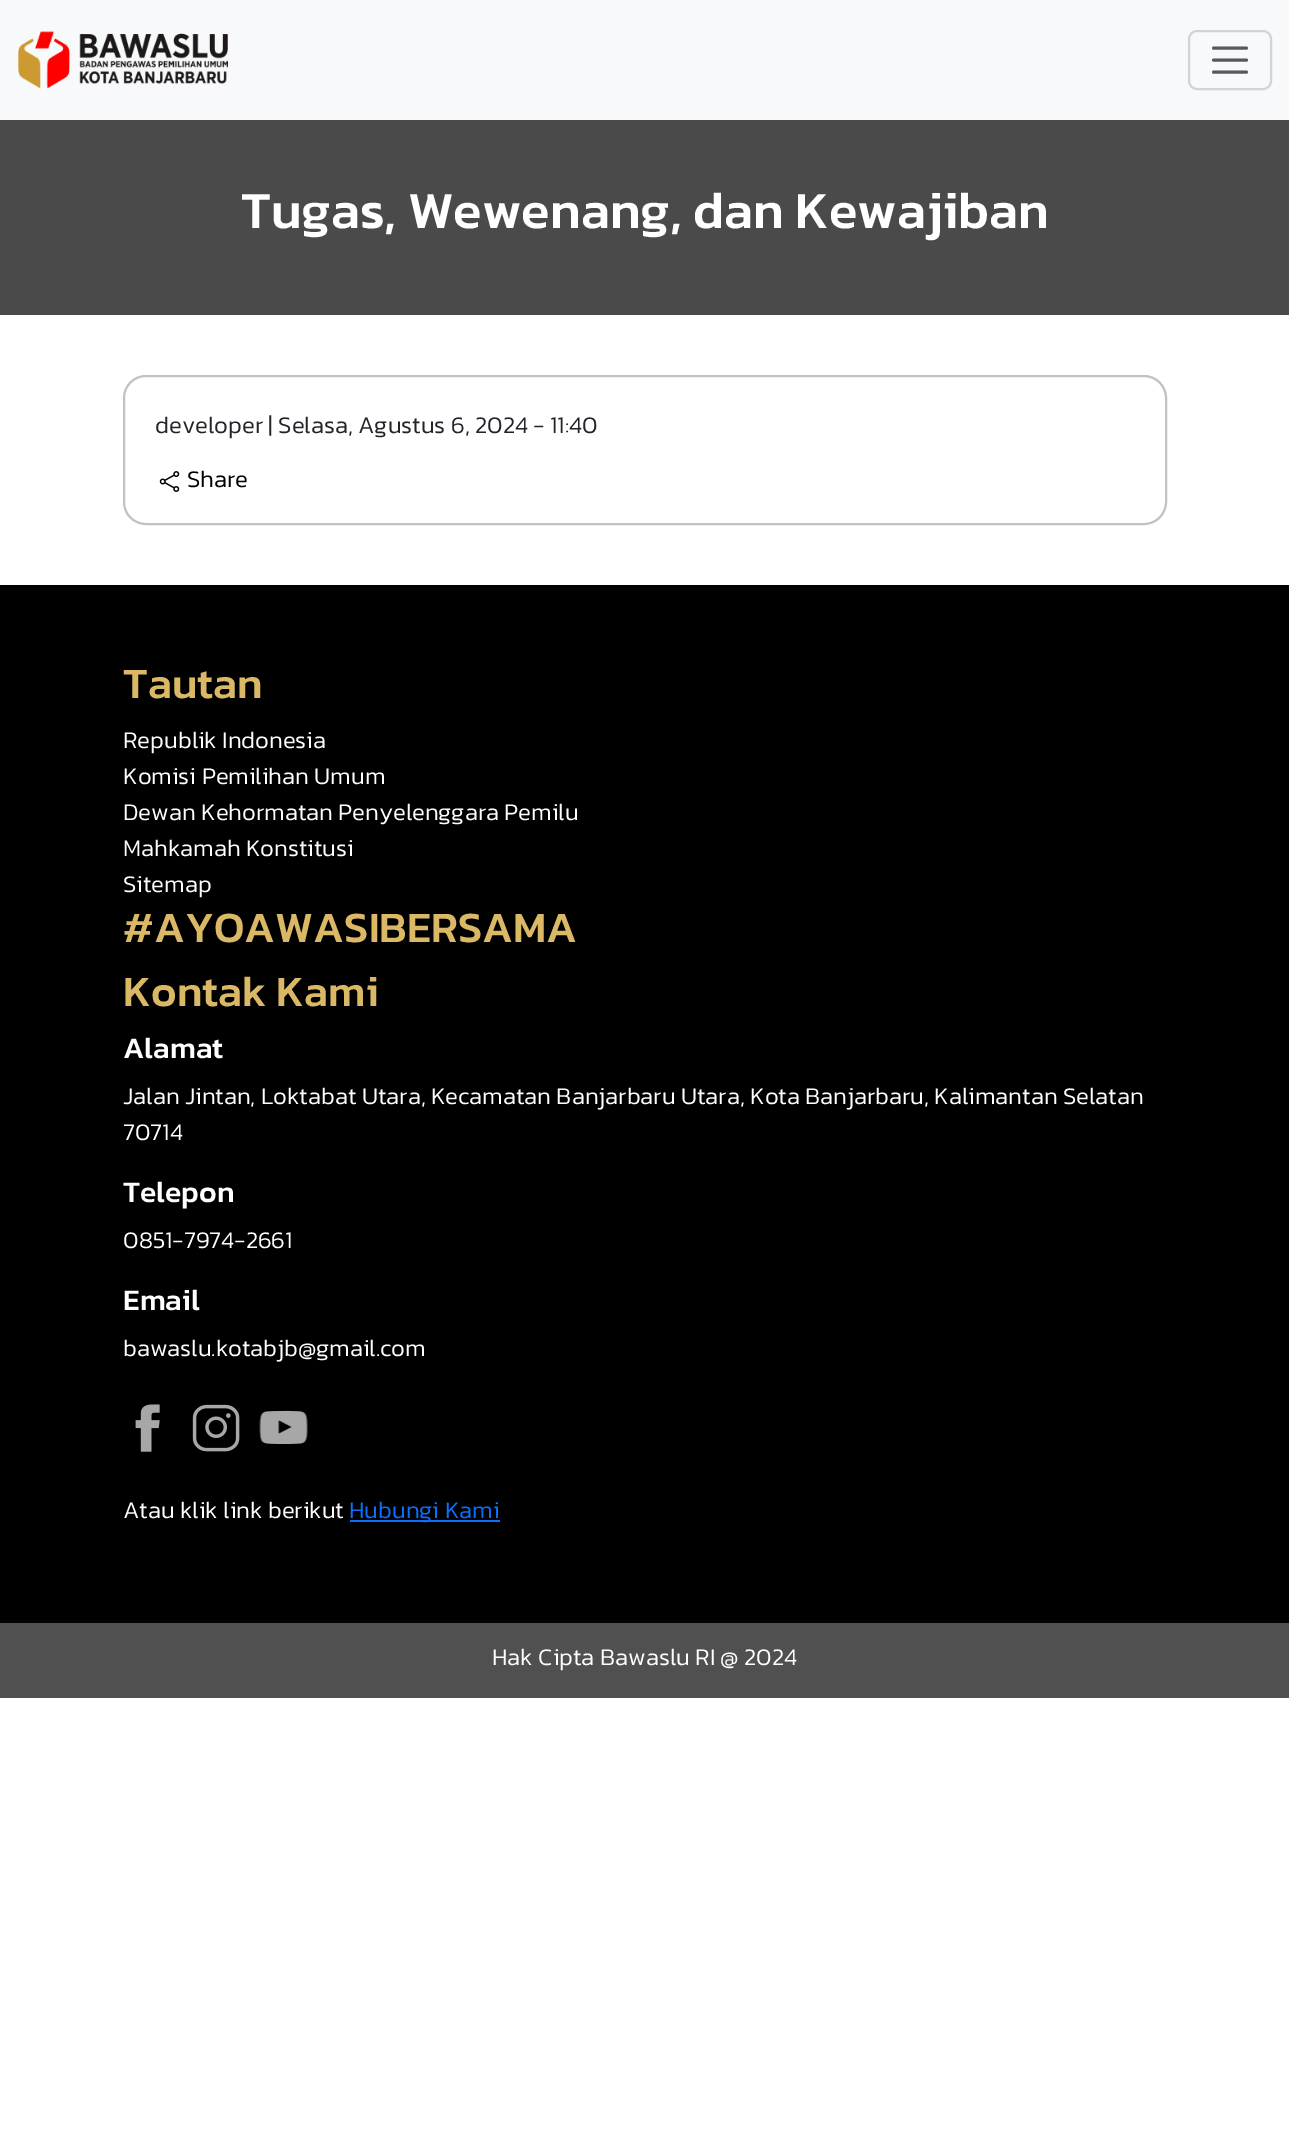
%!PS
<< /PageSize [1289 2156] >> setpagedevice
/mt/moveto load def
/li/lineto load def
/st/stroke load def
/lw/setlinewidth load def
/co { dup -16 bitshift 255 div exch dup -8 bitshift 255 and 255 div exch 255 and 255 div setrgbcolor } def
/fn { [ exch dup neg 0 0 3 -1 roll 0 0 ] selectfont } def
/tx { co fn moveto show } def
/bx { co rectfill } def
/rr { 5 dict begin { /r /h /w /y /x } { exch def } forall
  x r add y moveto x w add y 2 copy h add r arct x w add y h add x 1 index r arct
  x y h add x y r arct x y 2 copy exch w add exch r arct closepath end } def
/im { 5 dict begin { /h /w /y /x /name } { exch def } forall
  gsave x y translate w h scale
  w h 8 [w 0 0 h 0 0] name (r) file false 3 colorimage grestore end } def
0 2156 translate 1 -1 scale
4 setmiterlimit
0 0 1289 2156 16#FFFFFF bx
0 0 1289 120 16#F8F9FA bx
(media/1.raw) 18 31 210 58 im
16#D3D4D5 co
2 lw
1189 31 82 58 8 rr st
16#575A5D co
3 lw
1 setlinecap
1213.5 48 mt 1246.5 48 li 1213.5 60 mt 1246.5 60 li 1213.5 72 mt 1246.5 72 li st
0 120 1289 195 16#4A4A4A bx
16#C2C2C2 co
2 lw
0 setlinecap
124 376 1042 148 22 rr st
(media/2.raw) 159 471 21 21 im
0 585 1289 1038 16#000000 bx
(media/3.raw) 135 1404 25 48 im
(media/4.raw) 192 1404 48 48 im
(media/5.raw) 259 1410 49 34 im
350 1520 150 2 16#0D6EFD bx
0 1623 1289 75 16#505050 bx
(Tugas, Wewenang, dan Kewajiban) 241 228 /Kanit-Medium 52.4 16#FFFFFF tx
(developer | Selasa, Agustus 6, 2024 - 11:40) 155 433 /Kanit-Light 24 16#212529 tx
(Share) 187 487 /Kanit-Light 24 16#000000 tx
(Tautan) 123 698 /Kanit-Medium 43.5 16#DAB866 tx
(Republik Indonesia) 123 748 /Kanit-Light 24 16#FFFFFF tx
(Komisi Pemilihan Umum) 123 784 /Kanit-Light 24 16#FFFFFF tx
(Dewan Kehormatan Penyelenggara Pemilu) 123 820 /Kanit-Light 24 16#FFFFFF tx
(Mahkamah Konstitusi) 123 856 /Kanit-Light 24 16#FFFFFF tx
(Sitemap) 123 892 /Kanit-Light 24 16#FFFFFF tx
(#AYOAWASIBERSAMA) 123 942 /Kanit-Medium 43.5 16#DAB866 tx
(Kontak Kami) 123 1006 /Kanit-Medium 43.5 16#DAB866 tx
(Alamat) 123 1058 /Kanit-Medium 30 16#FFFFFF tx
(Jalan Jintan, Loktabat Utara, Kecamatan Banjarbaru Utara, Kota Banjarbaru, Kalimantan Selatan) 123 1104 /Kanit-Light 24 16#FFFFFF tx
(70714) 123 1140 /Kanit-Light 24 16#FFFFFF tx
(Telepon) 123 1202 /Kanit-Medium 30 16#FFFFFF tx
(0851-7974-2661) 123 1248 /Kanit-Light 24 16#FFFFFF tx
(Email) 123 1310 /Kanit-Medium 30 16#FFFFFF tx
(bawaslu.kotabjb@gmail.com) 123 1356 /Kanit-Light 24 16#FFFFFF tx
(Atau klik link berikut) 123 1518 /Kanit-Light 24 16#FFFFFF tx
(Hubungi Kami) 349 1518 /Kanit-Light 24 16#0D6EFD tx
(Hak Cipta Bawaslu RI @ 2024) 492 1665 /Kanit-Light 24 16#FFFFFF tx
showpage
